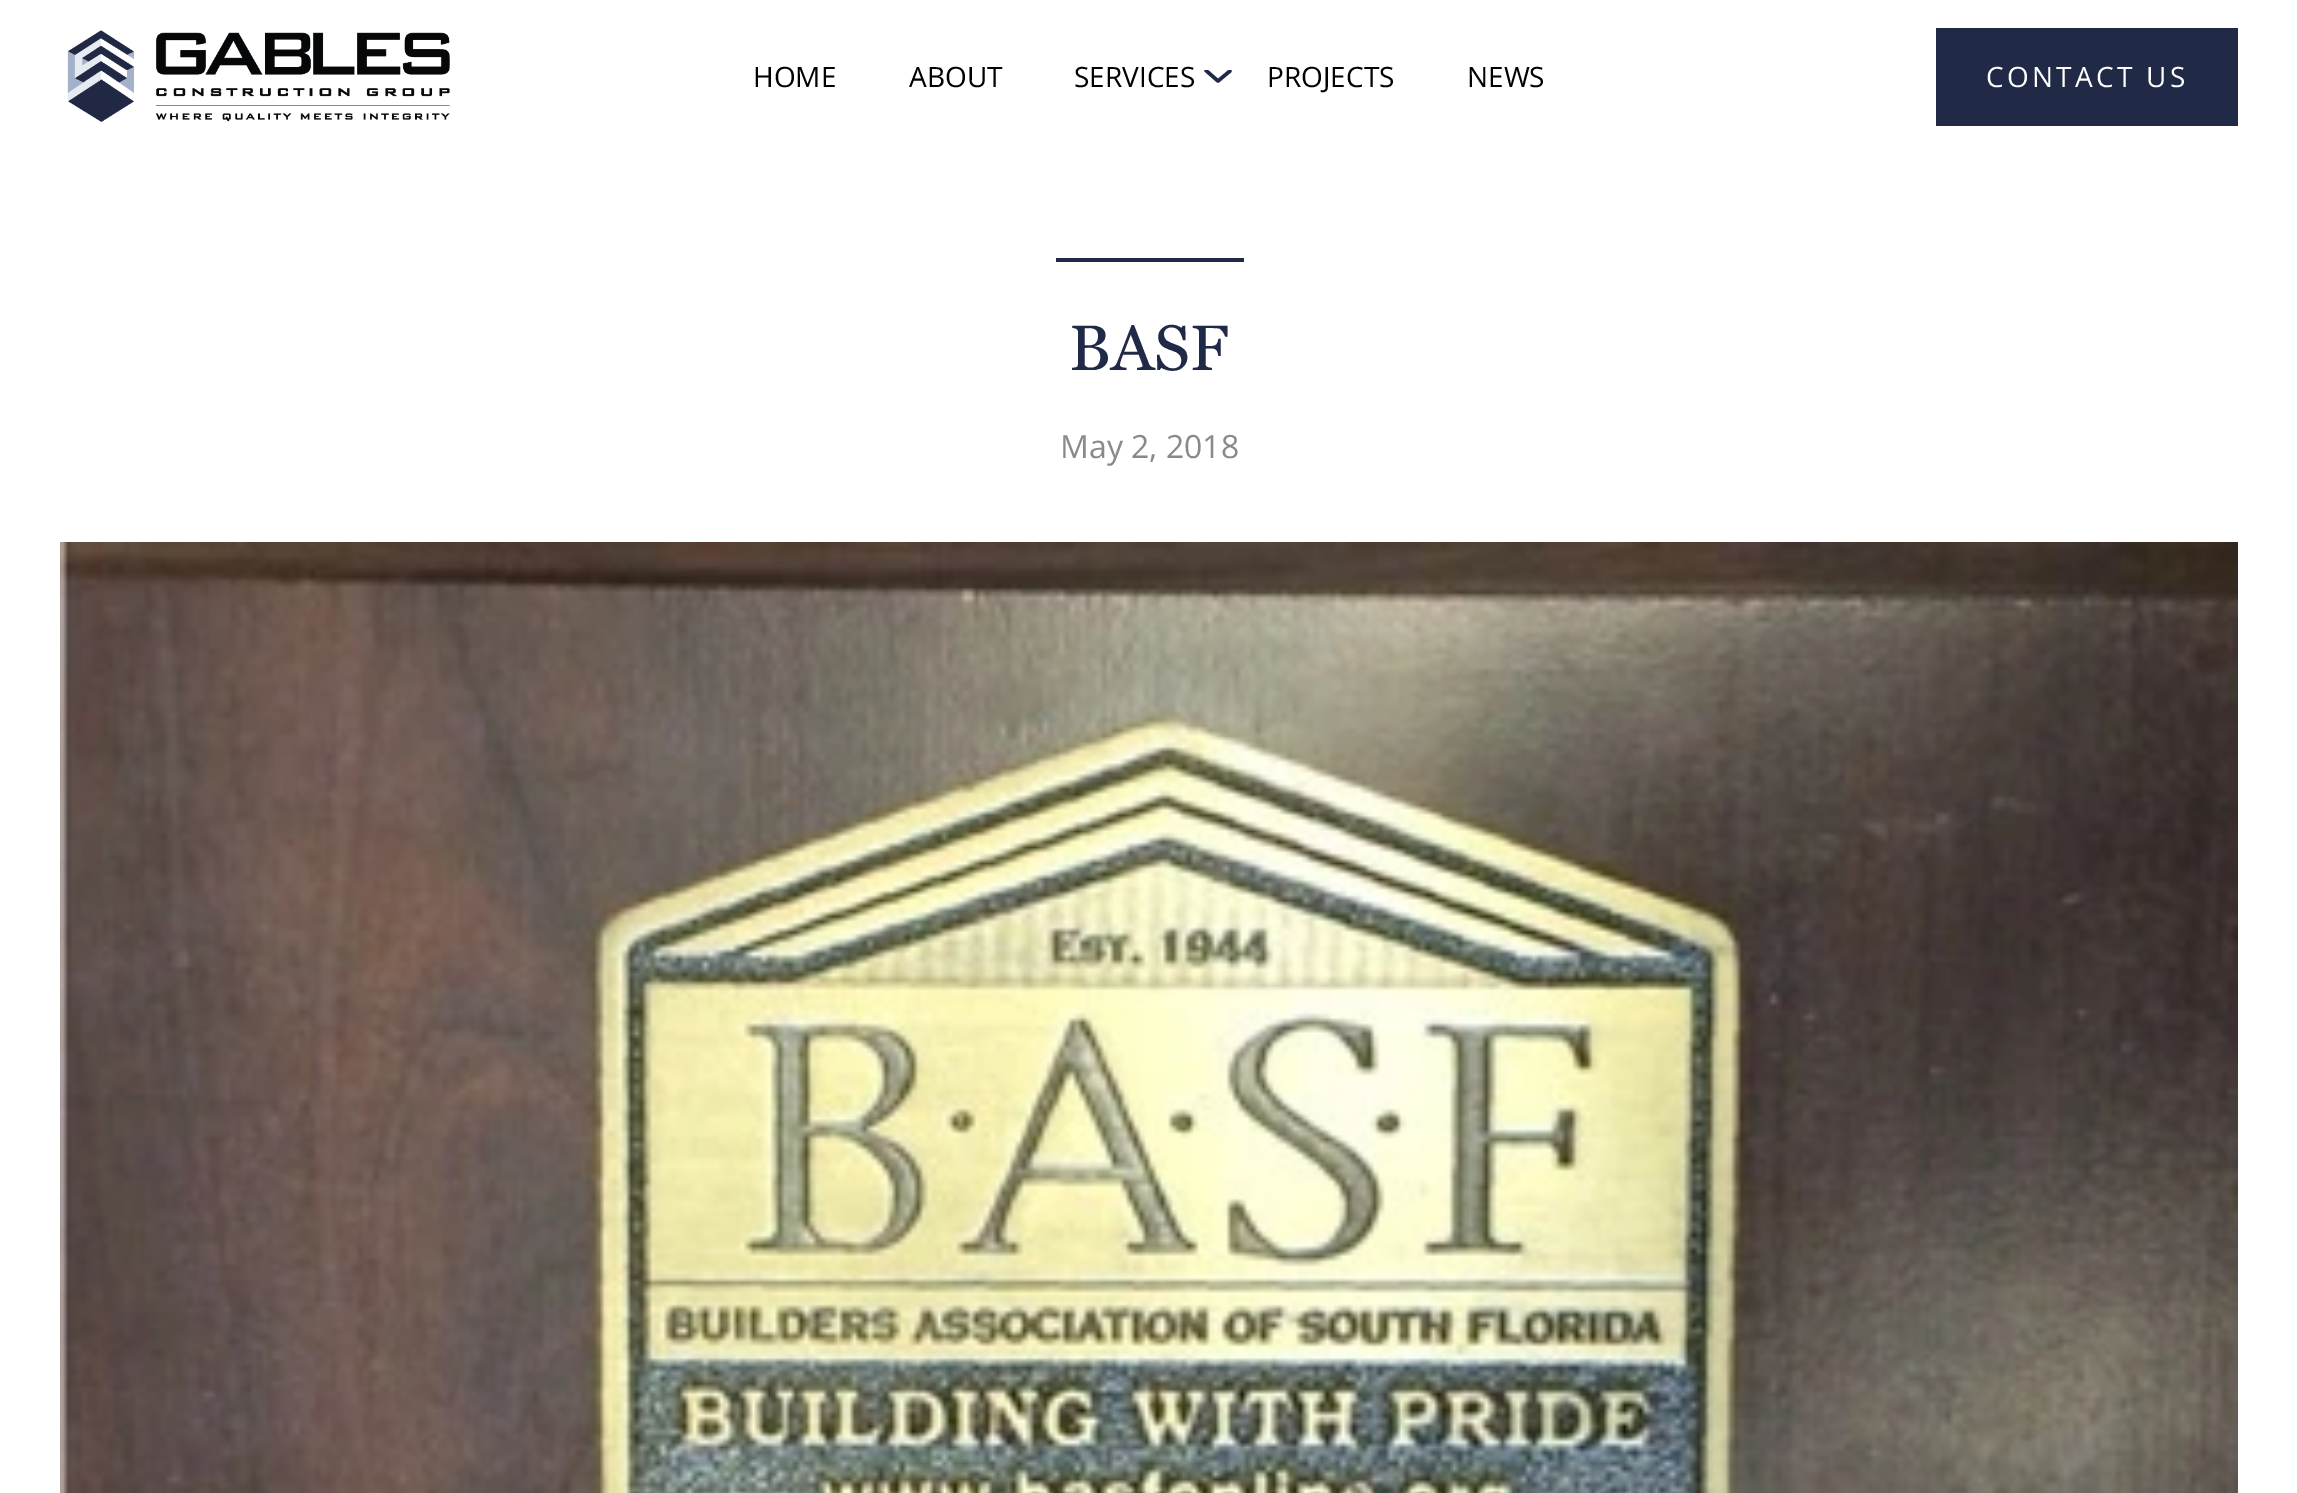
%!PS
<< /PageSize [2297 1493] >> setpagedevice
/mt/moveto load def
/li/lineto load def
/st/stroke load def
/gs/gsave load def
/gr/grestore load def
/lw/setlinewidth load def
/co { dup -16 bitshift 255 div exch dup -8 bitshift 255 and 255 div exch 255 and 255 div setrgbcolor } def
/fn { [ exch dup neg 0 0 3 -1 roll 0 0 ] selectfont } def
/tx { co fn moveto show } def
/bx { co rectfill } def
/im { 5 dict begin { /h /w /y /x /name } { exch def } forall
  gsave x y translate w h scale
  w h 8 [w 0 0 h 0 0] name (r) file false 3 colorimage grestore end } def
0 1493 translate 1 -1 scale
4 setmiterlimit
0 0 2297 1493 16#FFFFFF bx
(media/1.raw) 67 30 383 92 im
gs
1204 70 28 14 rectclip
16#202945 co
3.5 lw
1 setlinecap
1 setlinejoin
1230 71 mt 1218 81 li 1206 70.5 li st
gr
1936 28 302 98 16#202945 bx
1056 258 188 4 16#202945 bx
(media/2.raw) 60 542 2178 951 im
(HOME) 753 87 /OpenSans-Regular 28 16#000000 tx
(ABOUT) 909 87 /OpenSans-Regular 28 16#000000 tx
(SERVICES) 1074 87 /OpenSans-Regular 28 16#000000 tx
(PROJECTS) 1267 87 /OpenSans-Regular 28 16#000000 tx
(NEWS) 1467 87 /OpenSans-Regular 28 16#000000 tx
16#FFFFFF co
1986 87 mt 3.25 0 (CONTACT US) ashow
(BASF) 1069 370 /Georgia-Regular 64 16#202945 tx
(May 2, 2018) 1060 458 /OpenSans-Regular 32 16#898989 tx
showpage
